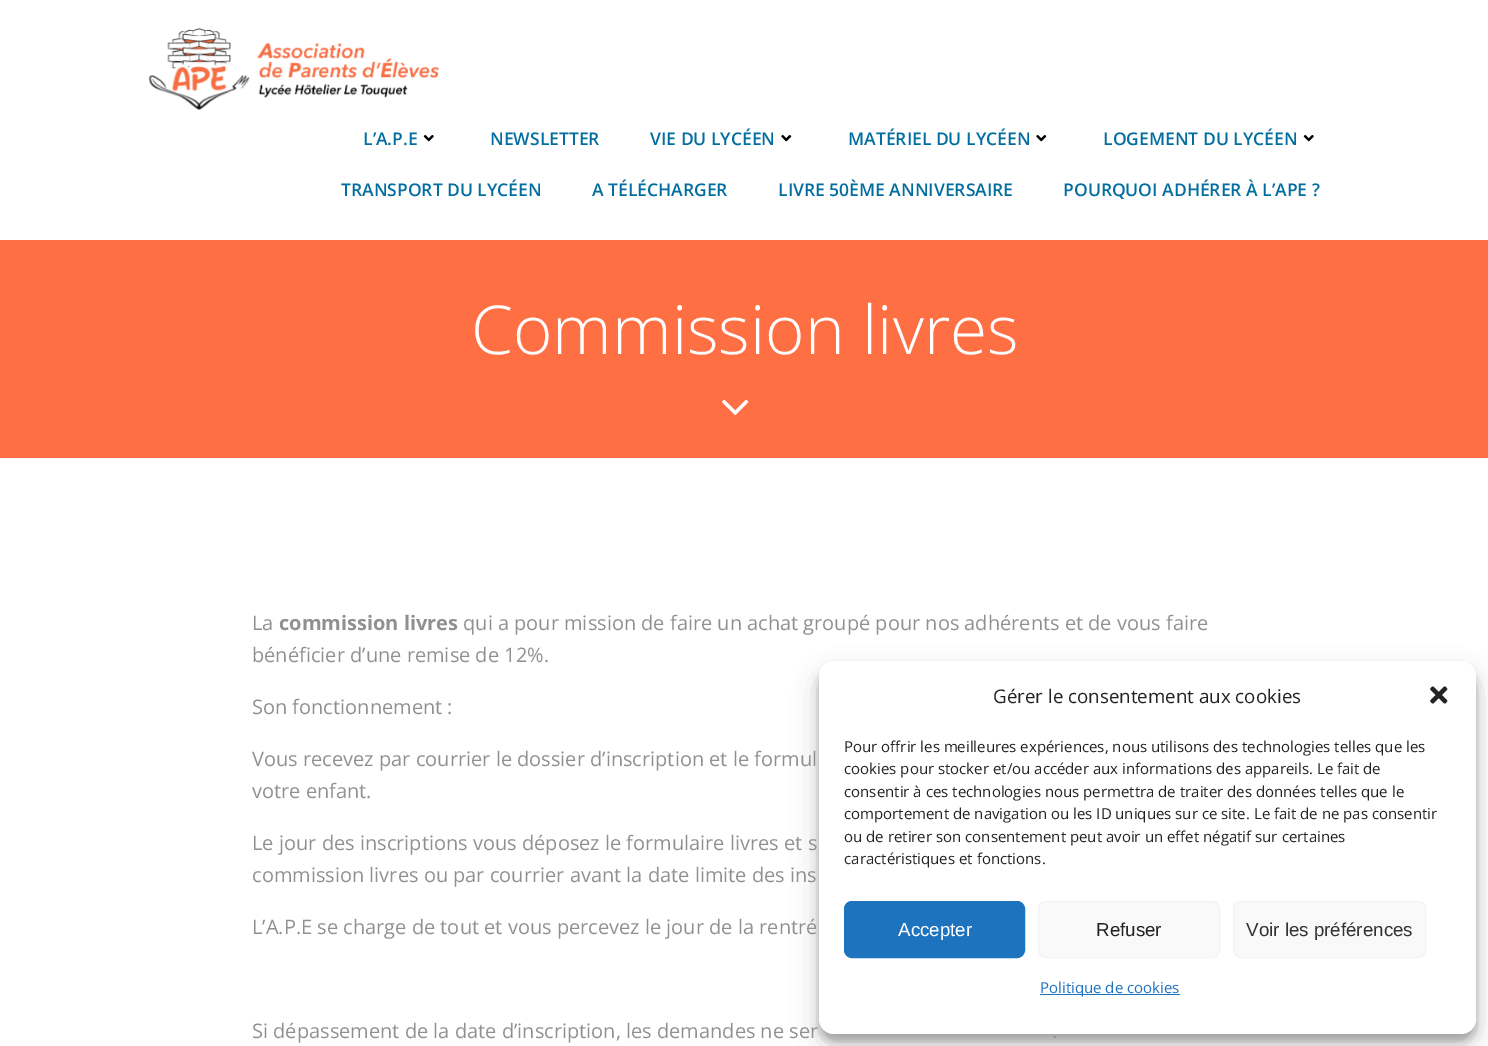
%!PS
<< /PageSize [1488 1046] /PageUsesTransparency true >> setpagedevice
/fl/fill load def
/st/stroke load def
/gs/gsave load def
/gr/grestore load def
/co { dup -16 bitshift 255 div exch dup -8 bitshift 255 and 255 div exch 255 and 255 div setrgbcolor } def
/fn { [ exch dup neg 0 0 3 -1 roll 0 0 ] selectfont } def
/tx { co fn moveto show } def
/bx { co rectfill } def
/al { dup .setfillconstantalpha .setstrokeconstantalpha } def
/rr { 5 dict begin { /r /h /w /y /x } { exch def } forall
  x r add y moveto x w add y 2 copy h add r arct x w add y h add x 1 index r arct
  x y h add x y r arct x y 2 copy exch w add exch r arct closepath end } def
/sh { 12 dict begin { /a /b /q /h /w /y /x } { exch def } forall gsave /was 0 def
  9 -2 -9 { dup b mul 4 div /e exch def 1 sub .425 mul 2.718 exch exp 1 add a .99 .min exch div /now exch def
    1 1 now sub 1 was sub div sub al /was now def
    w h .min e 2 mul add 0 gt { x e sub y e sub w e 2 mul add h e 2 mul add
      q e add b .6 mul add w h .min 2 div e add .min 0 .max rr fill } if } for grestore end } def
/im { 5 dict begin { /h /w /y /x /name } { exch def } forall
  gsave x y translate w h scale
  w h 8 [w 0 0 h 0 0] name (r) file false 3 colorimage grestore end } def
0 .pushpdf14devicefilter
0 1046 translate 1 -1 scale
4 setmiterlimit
0 0 1488 1046 16#FFFFFF bx
(media/1.raw) 148 28 292 83 im
(media/2.raw) 423 134 11 8 im
(media/3.raw) 781 134 11 8 im
(media/3.raw) 1036 134 11 8 im
(media/2.raw) 1303 134 11 8 im
0 240 1488 218 16#FF6F44 bx
(media/4.raw) 722 399 27 16 im
16#000000 co
819 669 657 372 15 4 .23 sh
819 674 657 372 15 12.5 .19 sh
16#FFFFFF co
819 661 657 373 15 rr fl
(media/5.raw) 1430 686 18 18 im
16#1E73BE co
844.5 901.5 180 56 7.5 rr gs fl gr
st
16#F9F9F9 co
1038.5 901.5 181 56 7.5 rr gs fl gr
16#F2F2F2 co
st
16#F9F9F9 co
1233.5 901.5 192 56 7.5 rr gs fl gr
16#F2F2F2 co
st
1040 994 140 1 16#1E73BE bx
(L’A.P.E) 363 145 /OpenSans-SemiBold 17.5 16#026E9F tx
(NEWSLETTER) 490 145 /OpenSans-SemiBold 17.5 16#026E9F tx
(VIE DU LYCÉEN) 650 145 /OpenSans-SemiBold 17.5 16#026E9F tx
(MATÉRIEL DU LYCÉEN) 848 145 /OpenSans-SemiBold 17.5 16#026E9F tx
(LOGEMENT DU LYCÉEN) 1103 145 /OpenSans-SemiBold 17.5 16#026E9F tx
(TRANSPORT DU LYCÉEN) 341 196 /OpenSans-SemiBold 17.5 16#026E9F tx
(A TÉLÉCHARGER) 592 196 /OpenSans-SemiBold 17.5 16#026E9F tx
(LIVRE 50ÈME ANNIVERSAIRE) 778 196 /OpenSans-SemiBold 17.5 16#026E9F tx
(POURQUOI ADHÉRER À L’APE ?) 1063 196 /OpenSans-SemiBold 17.5 16#026E9F tx
(Commission livres) 471 354 /OpenSans-Light 67.5 16#FFFFFF tx
(La) 252 630 /OpenSans-Regular 20 16#8F918F tx
(commission livres) 279 630 /OpenSans-Bold 20 16#8F918F tx
(qui a pour mission de faire un achat groupé pour nos adhérents et de vous faire) 463 630 /OpenSans-Regular 20 16#8F918F tx
(bénéficier d’une remise de 12%.) 252 662 /OpenSans-Regular 20 16#8F918F tx
(Son fonctionnement :) 252 714 /OpenSans-Regular 20 16#8F918F tx
(Vous recevez par courrier le dossier d’inscription et le formul) 252 766 /OpenSans-Regular 20 16#8F918F tx
(votre enfant.) 252 798 /OpenSans-Regular 20 16#8F918F tx
(Le jour des inscriptions vous déposez le formulaire livres et s) 252 850 /OpenSans-Regular 20 16#8F918F tx
(commission livres ou par courrier avant la date limite des ins) 252 882 /OpenSans-Regular 20 16#8F918F tx
(L’A.P.E se charge de tout et vous percevez le jour de la rentré) 252 934 /OpenSans-Regular 20 16#8F918F tx
(Si dépassement de la date d’inscription, les demandes ne ser) 252 1038 /OpenSans-Regular 20 16#8F918F tx
(.) 1052 1038 /OpenSans-Regular 20 16#8F918F tx
(Gérer le consentement aux cookies) 993 703 /OpenSans-Regular 18.75 16#222222 tx
(Pour offrir les meilleures expériences, nous utilisons des technologies telles que les) 844 752 /OpenSans-Regular 15 16#222222 tx
(cookies pour stocker et/ou accéder aux informations des appareils. Le fait de) 844 774 /OpenSans-Regular 15 16#222222 tx
(consentir à ces technologies nous permettra de traiter des données telles que le) 844 797 /OpenSans-Regular 15 16#222222 tx
(comportement de navigation ou les ID uniques sur ce site. Le fait de ne pas consentir) 844 819 /OpenSans-Regular 15 16#222222 tx
(ou de retirer son consentement peut avoir un effet négatif sur certaines) 844 842 /OpenSans-Regular 15 16#222222 tx
(caractéristiques et fonctions.) 844 864 /OpenSans-Regular 15 16#222222 tx
(Accepter) 898 936 /LiberationSans-Regular 18.75 16#FFFFFF tx
(Refuser) 1096 936 /LiberationSans-Regular 18.75 16#222222 tx
(Voir les préférences) 1246 936 /LiberationSans-Regular 18.75 16#333333 tx
(Politique de cookies) 1040 993 /OpenSans-Regular 15 16#1E73BE tx
.poppdf14devicefilter showpage
